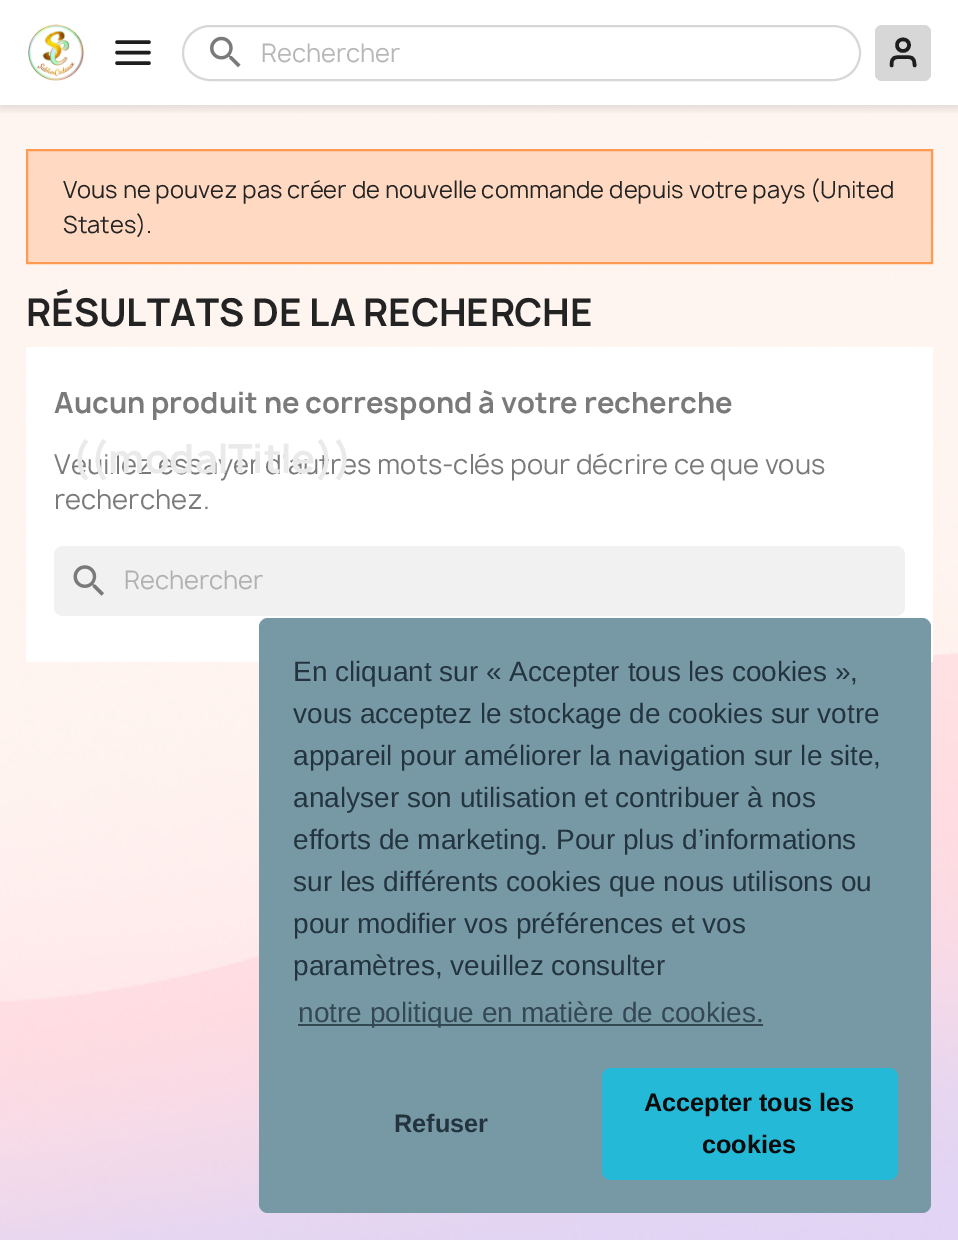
%!PS
<< /PageSize [958 1240] /PageUsesTransparency true >> setpagedevice
/mt/moveto load def
/li/lineto load def
/ct/curveto load def
/cp/closepath load def
/fl/fill load def
/st/stroke load def
/gs/gsave load def
/gr/grestore load def
/lw/setlinewidth load def
/co { dup -16 bitshift 255 div exch dup -8 bitshift 255 and 255 div exch 255 and 255 div setrgbcolor } def
/fn { [ exch dup neg 0 0 3 -1 roll 0 0 ] selectfont } def
/tx { co fn moveto show } def
/bx { co rectfill } def
/al { dup .setfillconstantalpha .setstrokeconstantalpha } def
/rr { 5 dict begin { /r /h /w /y /x } { exch def } forall
  x r add y moveto x w add y 2 copy h add r arct x w add y h add x 1 index r arct
  x y h add x y r arct x y 2 copy exch w add exch r arct closepath end } def
/sh { 12 dict begin { /a /b /q /h /w /y /x } { exch def } forall gsave /was 0 def
  9 -2 -9 { dup b mul 4 div /e exch def 1 sub .425 mul 2.718 exch exp 1 add a .99 .min exch div /now exch def
    1 1 now sub 1 was sub div sub al /was now def
    w h .min e 2 mul add 0 gt { x e sub y e sub w e 2 mul add h e 2 mul add
      q e add b .6 mul add w h .min 2 div e add .min 0 .max rr fill } if } for grestore end } def
/im { 5 dict begin { /h /w /y /x /name } { exch def } forall
  gsave x y translate w h scale
  w h 8 [w 0 0 h 0 0] name (r) file false 3 colorimage grestore end } def
0 .pushpdf14devicefilter
0 1240 translate 1 -1 scale
4 setmiterlimit
0 0 958 1240 16#FFFFFF bx
(media/3.raw) 0 105 958 1135 im
gs
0 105 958 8 rectclip
16#000000 co
0 4 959 105 0 4.5 .11 sh
gr
(media/1.raw) 28 24 56 57 im
16#1E1E1E co
3.5 lw
1 setlinecap
1 setlinejoin
117 52.5 mt 149 52.5 li 117 42 mt 149 42 li 117 63 mt 149 63 li st
16#D7D7D7 co
2 lw
0 setlinecap
0 setlinejoin
183 26 677 54 27 rr st
(media/2.raw) 210 36 31 32 im
875 25 56 56 7 rr fl
16#1E1E1E co
3.5 lw
1 setlinecap
1 setlinejoin
914.5 65.5 mt 914.5 56.5 911.5 57 903 57 ct 894.5 57 891.5 56.5 891.5 65.5 ct 909 45 mt 909 53 897 53 897 45 ct 897 37.5 909 37.5 909 45 ct cp st
16#FFD9C1 co
27 150 mt 932 150 li 932 263 li 27 263 li cp gs fl gr
16#FF9A52 co
2 lw
0 setlinecap
0 setlinejoin
st
26 347 907 315 16#FFFFFF bx
16#F1F1F1 co
54 546 851 70 9 rr fl
(media/4.raw) 73 565 31 31 im
16#7799A5 co
259 618 672 595 9 rr fl
298 1024 465 2 16#344853 bx
16#24B9D7 co
602 1068 296 112 9 rr fl
(Rechercher) 261 62 /Manrope-Regular 24.5 16#B7B7B7 tx
(Vous ne pouvez pas créer de nouvelle commande depuis votre pays \(United) 63 198 /Manrope-Regular 22.75 16#232323 tx
(States\).) 63 233 /Manrope-Regular 22.75 16#232323 tx
(RÉSULTATS DE LA RECHERCHE) 26 326 /Manrope-Bold 36.75 16#232323 tx
(Aucun produit ne correspond à votre recherche) 54 413 /Manrope-Bold 28 16#7A7A7A tx
(Veuillez essayer d'autres mots-clés pour décrire ce que vous) 54 474 /Manrope-Regular 26.25 16#7A7A7A tx
(recherchez.) 54 509 /Manrope-Regular 26.25 16#7A7A7A tx
(Rechercher) 124 589 /Manrope-Regular 24.5 16#B1B1B1 tx
(\(\(modalTitle\)\)) 72 473 /Manrope-Bold 38.5 16#EAEAEA tx
(En cliquant sur « Accepter tous les cookies »,) 293 681 /LiberationSans-Regular 28 16#23343E tx
(vous acceptez le stockage de cookies sur votre) 293 723 /LiberationSans-Regular 28 16#23343E tx
(appareil pour améliorer la navigation sur le site,) 293 765 /LiberationSans-Regular 28 16#23343E tx
(analyser son utilisation et contribuer à nos) 293 807 /LiberationSans-Regular 28 16#23343E tx
(efforts de marketing. Pour plus d’informations) 293 849 /LiberationSans-Regular 28 16#23343E tx
(sur les différents cookies que nous utilisons ou) 293 891 /LiberationSans-Regular 28 16#23343E tx
(pour modifier vos préférences et vos) 293 933 /LiberationSans-Regular 28 16#23343E tx
(paramètres, veuillez consulter) 293 975 /LiberationSans-Regular 28 16#23343E tx
(notre politique en matière de cookies.) 298 1022 /LiberationSans-Regular 28 16#344853 tx
(Refuser) 394 1132 /LiberationSans-Bold 25.25 16#23343E tx
(Accepter tous les) 644 1111 /LiberationSans-Bold 25.25 16#0D0B0B tx
(cookies) 702 1153 /LiberationSans-Bold 25.25 16#0D0B0B tx
.poppdf14devicefilter showpage
